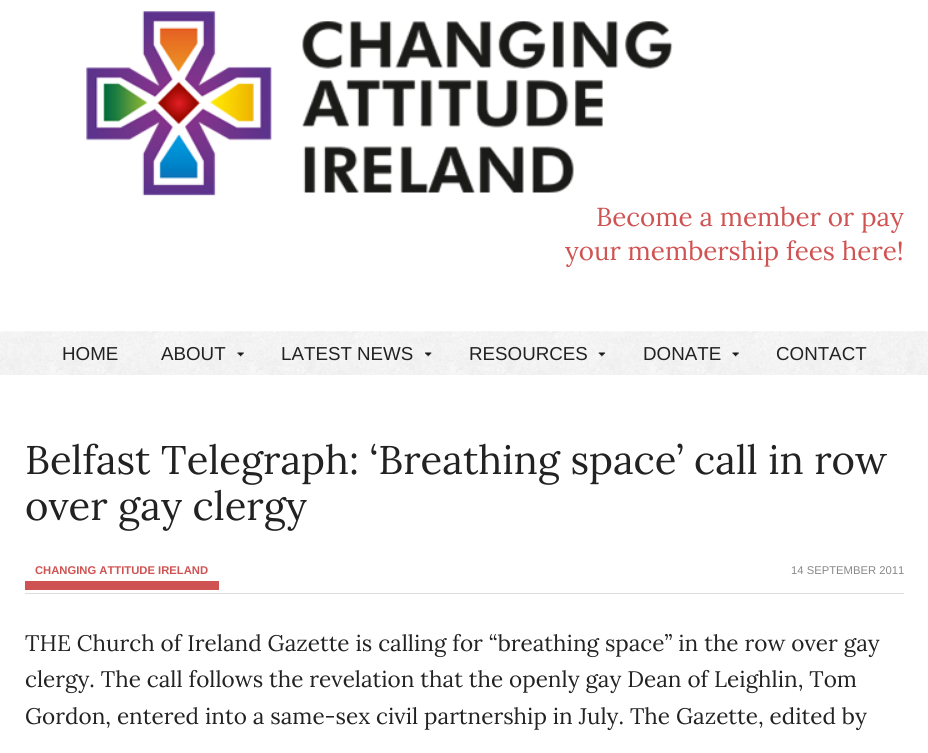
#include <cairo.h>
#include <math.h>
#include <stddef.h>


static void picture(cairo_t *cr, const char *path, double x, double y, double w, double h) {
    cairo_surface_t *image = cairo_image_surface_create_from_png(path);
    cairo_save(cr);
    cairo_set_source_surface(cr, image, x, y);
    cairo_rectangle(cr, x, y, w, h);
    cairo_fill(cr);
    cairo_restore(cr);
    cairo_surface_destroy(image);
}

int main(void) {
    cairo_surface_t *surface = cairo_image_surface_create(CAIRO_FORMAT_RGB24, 928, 753);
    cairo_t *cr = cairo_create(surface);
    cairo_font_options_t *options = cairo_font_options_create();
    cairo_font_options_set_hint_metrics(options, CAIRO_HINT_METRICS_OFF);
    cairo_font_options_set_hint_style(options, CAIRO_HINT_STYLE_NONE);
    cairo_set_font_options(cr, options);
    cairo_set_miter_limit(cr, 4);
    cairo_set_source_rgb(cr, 1, 1, 1);
    cairo_paint(cr);
    picture(cr, "img1.png", 86, 11, 587, 185);
    cairo_select_font_face(cr, "Lora", CAIRO_FONT_SLANT_NORMAL, CAIRO_FONT_WEIGHT_NORMAL);
    cairo_set_font_size(cr, 26);
    cairo_set_source_rgb(cr, 0.816, 0.325, 0.325);
    cairo_move_to(cr, 596, 226);
    cairo_show_text(cr, "Become a member or pay");
    cairo_move_to(cr, 565, 260);
    cairo_show_text(cr, "your membership fees here!");
    picture(cr, "img2.png", 0, 331, 928, 44);
    cairo_select_font_face(cr, "Liberation Sans", CAIRO_FONT_SLANT_NORMAL, CAIRO_FONT_WEIGHT_NORMAL);
    cairo_set_font_size(cr, 18.75);
    cairo_set_source_rgb(cr, 0.133, 0.133, 0.133);
    cairo_move_to(cr, 62, 360);
    cairo_show_text(cr, "HOME");
    cairo_move_to(cr, 161, 360);
    cairo_show_text(cr, "ABOUT");
    picture(cr, "img3.png", 237, 352, 7, 5);
    cairo_move_to(cr, 281, 360);
    cairo_show_text(cr, "LATEST NEWS");
    picture(cr, "img4.png", 425, 352, 7, 5);
    cairo_move_to(cr, 469, 360);
    cairo_show_text(cr, "RESOURCES");
    picture(cr, "img5.png", 598, 352, 7, 5);
    cairo_move_to(cr, 643, 360);
    cairo_show_text(cr, "DONATE");
    picture(cr, "img6.png", 732, 352, 7, 5);
    cairo_move_to(cr, 776, 360);
    cairo_show_text(cr, "CONTACT");
    cairo_select_font_face(cr, "Lora", CAIRO_FONT_SLANT_NORMAL, CAIRO_FONT_WEIGHT_NORMAL);
    cairo_set_font_size(cr, 40);
    cairo_move_to(cr, 25, 474);
    cairo_show_text(cr, "Belfast Telegraph: ‘Breathing space’ call in row");
    cairo_move_to(cr, 25, 520);
    cairo_show_text(cr, "over gay clergy");
    cairo_set_source_rgb(cr, 0.867, 0.867, 0.867);
    cairo_rectangle(cr, 25, 593, 879, 1);
    cairo_fill(cr);
    cairo_select_font_face(cr, "Liberation Sans", CAIRO_FONT_SLANT_NORMAL, CAIRO_FONT_WEIGHT_BOLD);
    cairo_set_font_size(cr, 11.25);
    cairo_set_source_rgb(cr, 0.816, 0.325, 0.325);
    cairo_move_to(cr, 35, 574);
    cairo_show_text(cr, "CHANGING ATTITUDE IRELAND");
    cairo_rectangle(cr, 25, 581, 194, 9);
    cairo_fill(cr);
    cairo_select_font_face(cr, "Liberation Sans", CAIRO_FONT_SLANT_NORMAL, CAIRO_FONT_WEIGHT_NORMAL);
    cairo_set_source_rgb(cr, 0.533, 0.533, 0.533);
    cairo_move_to(cr, 791, 574);
    cairo_show_text(cr, "14 SEPTEMBER 2011");
    cairo_select_font_face(cr, "Lora", CAIRO_FONT_SLANT_NORMAL, CAIRO_FONT_WEIGHT_NORMAL);
    cairo_set_font_size(cr, 22.5);
    cairo_set_source_rgb(cr, 0.133, 0.133, 0.133);
    cairo_move_to(cr, 25, 651);
    cairo_show_text(cr, "THE Church of Ireland Gazette is calling for “breathing space” in the row over gay");
    cairo_move_to(cr, 25, 687);
    cairo_show_text(cr, "clergy. The call follows the revelation that the openly gay Dean of Leighlin, Tom");
    cairo_move_to(cr, 25, 724);
    cairo_show_text(cr, "Gordon, entered into a same-sex civil partnership in July. The Gazette, edited by");
    cairo_surface_write_to_png(surface, "page.png");
    cairo_font_options_destroy(options);
    cairo_destroy(cr);
    cairo_surface_destroy(surface);
    return 0;
}
